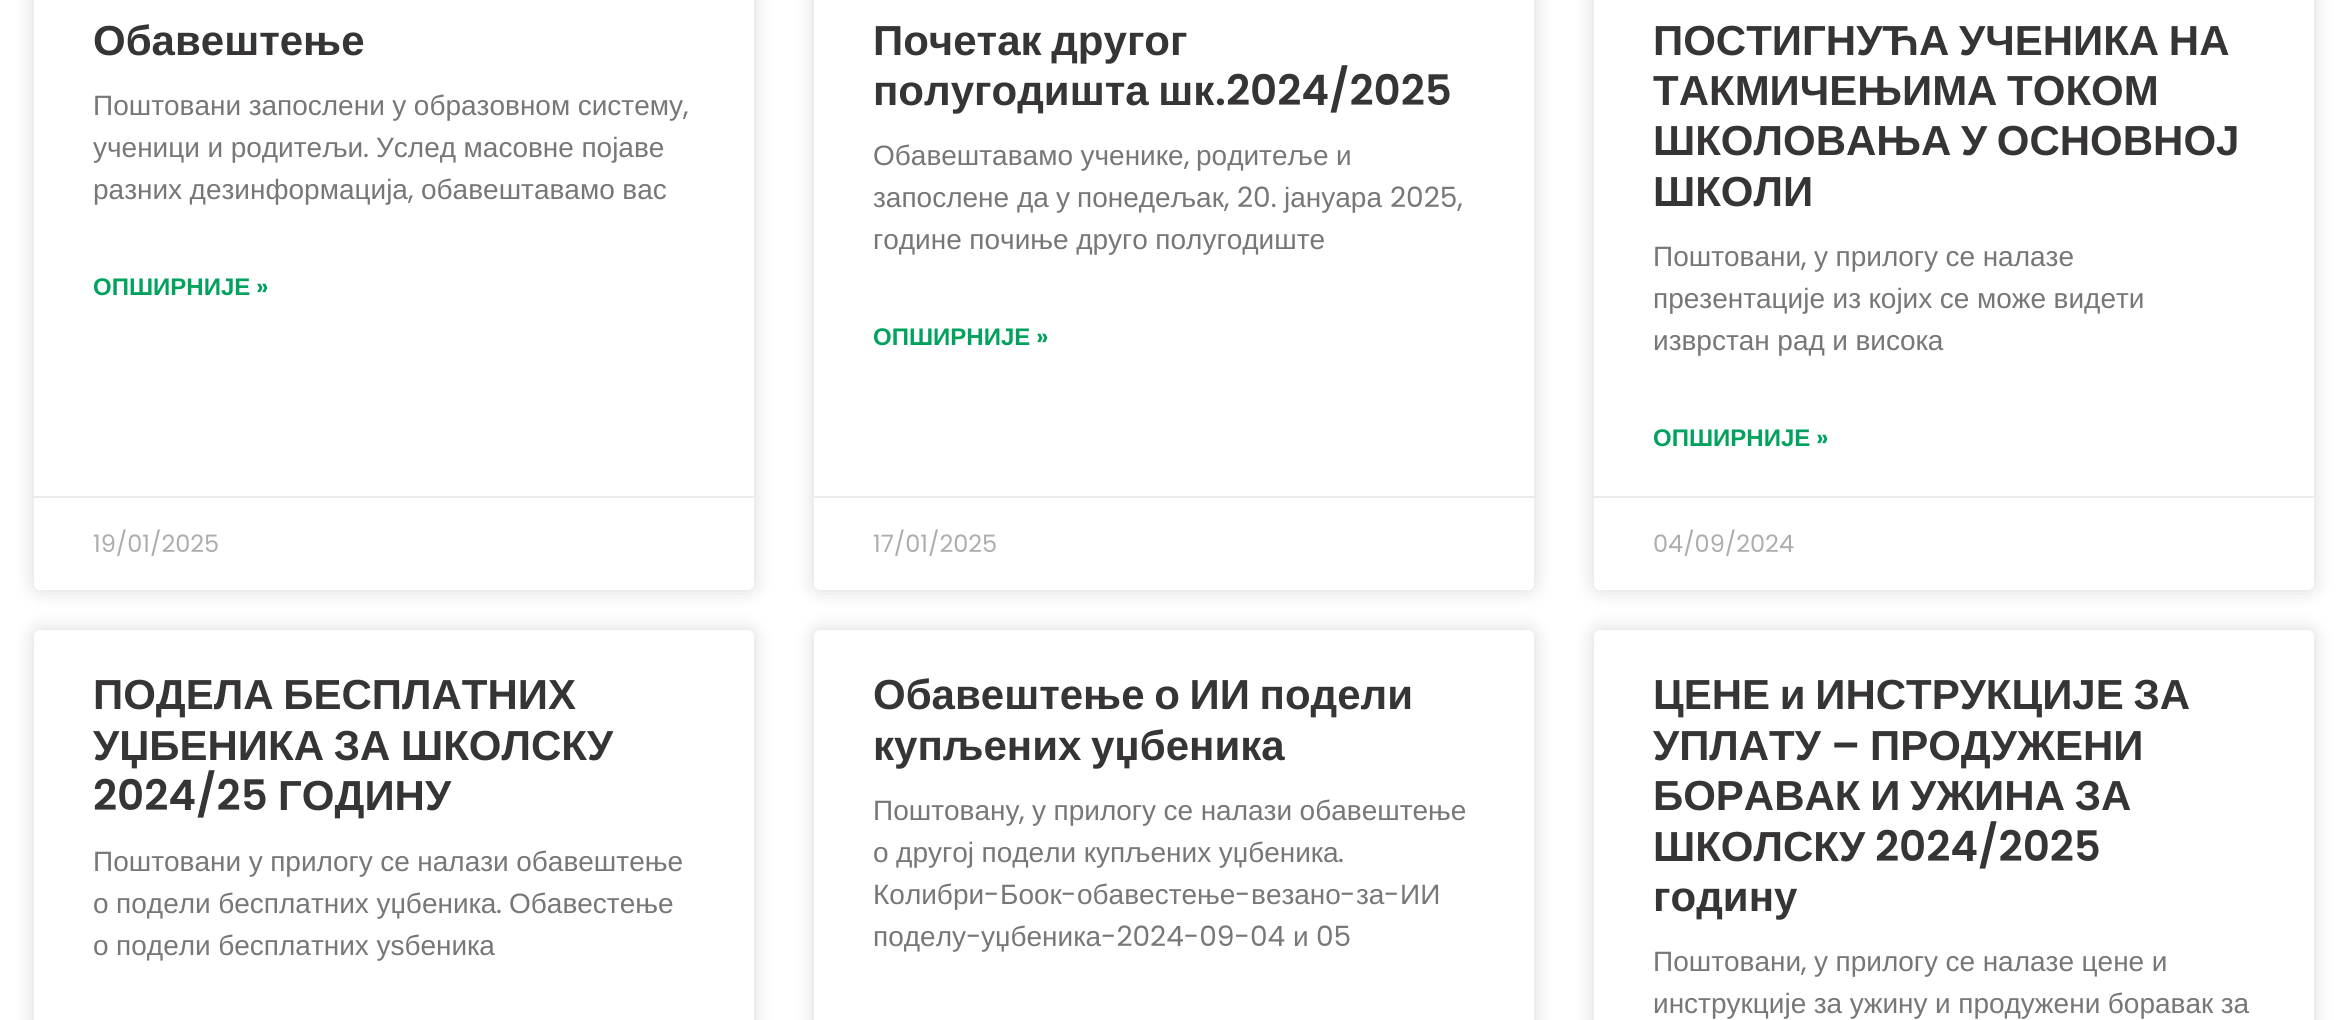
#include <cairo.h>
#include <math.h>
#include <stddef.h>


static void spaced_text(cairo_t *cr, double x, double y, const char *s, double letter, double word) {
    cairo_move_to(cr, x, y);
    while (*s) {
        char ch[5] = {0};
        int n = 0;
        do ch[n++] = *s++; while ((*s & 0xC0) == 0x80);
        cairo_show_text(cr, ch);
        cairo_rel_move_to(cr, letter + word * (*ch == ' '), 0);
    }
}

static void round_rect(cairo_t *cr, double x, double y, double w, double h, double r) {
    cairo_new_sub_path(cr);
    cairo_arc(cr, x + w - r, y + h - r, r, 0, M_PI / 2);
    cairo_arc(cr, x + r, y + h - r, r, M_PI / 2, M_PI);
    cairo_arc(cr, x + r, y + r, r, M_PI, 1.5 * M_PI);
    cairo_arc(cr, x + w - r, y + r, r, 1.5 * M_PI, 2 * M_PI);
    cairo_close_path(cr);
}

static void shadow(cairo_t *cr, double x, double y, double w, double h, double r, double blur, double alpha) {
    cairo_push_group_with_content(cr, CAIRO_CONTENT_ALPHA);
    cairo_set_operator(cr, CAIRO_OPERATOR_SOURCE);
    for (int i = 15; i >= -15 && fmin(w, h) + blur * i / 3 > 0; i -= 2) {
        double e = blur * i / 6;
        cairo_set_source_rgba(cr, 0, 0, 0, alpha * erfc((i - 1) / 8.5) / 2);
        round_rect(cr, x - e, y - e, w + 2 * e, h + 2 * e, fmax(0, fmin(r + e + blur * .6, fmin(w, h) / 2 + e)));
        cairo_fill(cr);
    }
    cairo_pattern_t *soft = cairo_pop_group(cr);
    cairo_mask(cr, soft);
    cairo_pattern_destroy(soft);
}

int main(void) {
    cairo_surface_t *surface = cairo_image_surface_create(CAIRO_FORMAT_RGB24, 2345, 1020);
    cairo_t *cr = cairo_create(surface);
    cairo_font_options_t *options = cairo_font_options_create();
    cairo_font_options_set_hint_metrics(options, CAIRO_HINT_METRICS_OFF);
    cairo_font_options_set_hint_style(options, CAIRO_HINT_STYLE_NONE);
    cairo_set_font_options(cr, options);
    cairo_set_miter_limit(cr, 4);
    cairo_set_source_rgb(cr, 1, 1, 1);
    cairo_paint(cr);
    cairo_set_source_rgb(cr, 0, 0, 0);
    shadow(cr, 34, -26, 720, 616, 6, 10, 0.15);
    cairo_set_source_rgb(cr, 1, 1, 1);
    round_rect(cr, 34, -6, 720, 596, 6);
    cairo_fill(cr);
    cairo_select_font_face(cr, "Liberation Sans", CAIRO_FONT_SLANT_NORMAL, CAIRO_FONT_WEIGHT_BOLD);
    cairo_set_font_size(cr, 42);
    cairo_set_source_rgb(cr, 0.212, 0.204, 0.208);
    cairo_move_to(cr, 93, 55);
    cairo_show_text(cr, "Обавештење");
    cairo_select_font_face(cr, "Liberation Sans", CAIRO_FONT_SLANT_NORMAL, CAIRO_FONT_WEIGHT_NORMAL);
    cairo_set_font_size(cr, 28);
    cairo_set_source_rgb(cr, 0.467, 0.467, 0.467);
    spaced_text(cr, 93, 115, "Поштовани запослени у образовном систему", 0, -0.25);
    cairo_select_font_face(cr, "Poppins", CAIRO_FONT_SLANT_NORMAL, CAIRO_FONT_WEIGHT_NORMAL);
    cairo_move_to(cr, 683, 115);
    cairo_show_text(cr, ",");
    cairo_select_font_face(cr, "Liberation Sans", CAIRO_FONT_SLANT_NORMAL, CAIRO_FONT_WEIGHT_NORMAL);
    spaced_text(cr, 93, 157, "ученици и родитељи", 0, -0.25);
    cairo_select_font_face(cr, "Poppins", CAIRO_FONT_SLANT_NORMAL, CAIRO_FONT_WEIGHT_NORMAL);
    cairo_move_to(cr, 363, 157);
    cairo_show_text(cr, ".");
    cairo_select_font_face(cr, "Liberation Sans", CAIRO_FONT_SLANT_NORMAL, CAIRO_FONT_WEIGHT_NORMAL);
    spaced_text(cr, 376, 157, "Услед масовне појаве", 0, -0.25);
    spaced_text(cr, 93, 199, "разних дезинформација", 0, -0.25);
    cairo_select_font_face(cr, "Poppins", CAIRO_FONT_SLANT_NORMAL, CAIRO_FONT_WEIGHT_NORMAL);
    cairo_move_to(cr, 408, 199);
    cairo_show_text(cr, ",");
    cairo_select_font_face(cr, "Liberation Sans", CAIRO_FONT_SLANT_NORMAL, CAIRO_FONT_WEIGHT_NORMAL);
    spaced_text(cr, 421, 199, "обавештавамо вас", 0, -0.25);
    cairo_select_font_face(cr, "Liberation Sans", CAIRO_FONT_SLANT_NORMAL, CAIRO_FONT_WEIGHT_BOLD);
    cairo_set_font_size(cr, 24);
    cairo_set_source_rgb(cr, 0.004, 0.635, 0.369);
    cairo_move_to(cr, 93, 295);
    cairo_show_text(cr, "ОПШИРНИЈЕ");
    cairo_select_font_face(cr, "Poppins SemiBold", CAIRO_FONT_SLANT_NORMAL, CAIRO_FONT_WEIGHT_NORMAL);
    cairo_move_to(cr, 256, 295);
    cairo_show_text(cr, "»");
    cairo_set_source_rgb(cr, 0.918, 0.918, 0.918);
    cairo_rectangle(cr, 34, 496, 720, 2);
    cairo_fill(cr);
    cairo_select_font_face(cr, "Poppins", CAIRO_FONT_SLANT_NORMAL, CAIRO_FONT_WEIGHT_NORMAL);
    cairo_set_source_rgb(cr, 0.678, 0.678, 0.678);
    cairo_move_to(cr, 93, 552);
    cairo_show_text(cr, "19/01/2025");
    cairo_set_source_rgb(cr, 0, 0, 0);
    shadow(cr, 814, -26, 720, 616, 6, 10, 0.15);
    cairo_set_source_rgb(cr, 1, 1, 1);
    round_rect(cr, 814, -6, 720, 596, 6);
    cairo_fill(cr);
    cairo_select_font_face(cr, "Liberation Sans", CAIRO_FONT_SLANT_NORMAL, CAIRO_FONT_WEIGHT_BOLD);
    cairo_set_font_size(cr, 42);
    cairo_set_source_rgb(cr, 0.212, 0.204, 0.208);
    spaced_text(cr, 873, 55, "Почетак другог", 0, -2);
    spaced_text(cr, 873, 105, "полугодишта шк", 0, -2);
    cairo_select_font_face(cr, "Poppins SemiBold", CAIRO_FONT_SLANT_NORMAL, CAIRO_FONT_WEIGHT_NORMAL);
    cairo_move_to(cr, 1215, 105);
    cairo_show_text(cr, ".2024/2025");
    cairo_select_font_face(cr, "Liberation Sans", CAIRO_FONT_SLANT_NORMAL, CAIRO_FONT_WEIGHT_NORMAL);
    cairo_set_font_size(cr, 28);
    cairo_set_source_rgb(cr, 0.467, 0.467, 0.467);
    spaced_text(cr, 873, 165, "Обавештавамо ученике", 0, -0.25);
    cairo_select_font_face(cr, "Poppins", CAIRO_FONT_SLANT_NORMAL, CAIRO_FONT_WEIGHT_NORMAL);
    cairo_move_to(cr, 1184, 165);
    cairo_show_text(cr, ",");
    cairo_select_font_face(cr, "Liberation Sans", CAIRO_FONT_SLANT_NORMAL, CAIRO_FONT_WEIGHT_NORMAL);
    spaced_text(cr, 1196, 165, "родитеље и", 0, -0.25);
    cairo_move_to(cr, 873, 207);
    cairo_show_text(cr, "запослене");
    cairo_move_to(cr, 1017, 207);
    cairo_show_text(cr, "да");
    cairo_move_to(cr, 1056, 207);
    cairo_show_text(cr, "у");
    cairo_move_to(cr, 1077, 207);
    cairo_show_text(cr, "понедељак");
    cairo_select_font_face(cr, "Poppins", CAIRO_FONT_SLANT_NORMAL, CAIRO_FONT_WEIGHT_NORMAL);
    cairo_move_to(cr, 1224, 207);
    cairo_show_text(cr, ", 20.");
    cairo_select_font_face(cr, "Liberation Sans", CAIRO_FONT_SLANT_NORMAL, CAIRO_FONT_WEIGHT_NORMAL);
    cairo_move_to(cr, 1284, 207);
    cairo_show_text(cr, "јануара");
    cairo_select_font_face(cr, "Poppins", CAIRO_FONT_SLANT_NORMAL, CAIRO_FONT_WEIGHT_NORMAL);
    cairo_move_to(cr, 1390, 207);
    cairo_show_text(cr, "2025,");
    cairo_select_font_face(cr, "Liberation Sans", CAIRO_FONT_SLANT_NORMAL, CAIRO_FONT_WEIGHT_NORMAL);
    spaced_text(cr, 873, 249, "године почиње друго полугодиште", 0, -0.25);
    cairo_select_font_face(cr, "Liberation Sans", CAIRO_FONT_SLANT_NORMAL, CAIRO_FONT_WEIGHT_BOLD);
    cairo_set_font_size(cr, 24);
    cairo_set_source_rgb(cr, 0.004, 0.635, 0.369);
    cairo_move_to(cr, 873, 345);
    cairo_show_text(cr, "ОПШИРНИЈЕ");
    cairo_select_font_face(cr, "Poppins SemiBold", CAIRO_FONT_SLANT_NORMAL, CAIRO_FONT_WEIGHT_NORMAL);
    cairo_move_to(cr, 1036, 345);
    cairo_show_text(cr, "»");
    cairo_set_source_rgb(cr, 0.918, 0.918, 0.918);
    cairo_rectangle(cr, 814, 496, 720, 2);
    cairo_fill(cr);
    cairo_select_font_face(cr, "Poppins", CAIRO_FONT_SLANT_NORMAL, CAIRO_FONT_WEIGHT_NORMAL);
    cairo_set_source_rgb(cr, 0.678, 0.678, 0.678);
    cairo_move_to(cr, 873, 552);
    cairo_show_text(cr, "17/01/2025");
    cairo_set_source_rgb(cr, 0, 0, 0);
    shadow(cr, 1594, -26, 720, 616, 6, 10, 0.15);
    cairo_set_source_rgb(cr, 1, 1, 1);
    round_rect(cr, 1594, -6, 720, 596, 6);
    cairo_fill(cr);
    cairo_select_font_face(cr, "Liberation Sans", CAIRO_FONT_SLANT_NORMAL, CAIRO_FONT_WEIGHT_BOLD);
    cairo_set_font_size(cr, 42);
    cairo_set_source_rgb(cr, 0.212, 0.204, 0.208);
    spaced_text(cr, 1653, 55, "ПОСТИГНУЋА УЧЕНИКА НА", 0, -2);
    spaced_text(cr, 1653, 105, "ТАКМИЧЕЊИМА ТОКОМ", 0, -2);
    spaced_text(cr, 1653, 155, "ШКОЛОВАЊА У ОСНОВНОЈ", 0, -2);
    cairo_move_to(cr, 1653, 206);
    cairo_show_text(cr, "ШКОЛИ");
    cairo_select_font_face(cr, "Liberation Sans", CAIRO_FONT_SLANT_NORMAL, CAIRO_FONT_WEIGHT_NORMAL);
    cairo_set_font_size(cr, 28);
    cairo_set_source_rgb(cr, 0.467, 0.467, 0.467);
    cairo_move_to(cr, 1653, 266);
    cairo_show_text(cr, "Поштовани");
    cairo_select_font_face(cr, "Poppins", CAIRO_FONT_SLANT_NORMAL, CAIRO_FONT_WEIGHT_NORMAL);
    cairo_move_to(cr, 1801, 266);
    cairo_show_text(cr, ",");
    cairo_select_font_face(cr, "Liberation Sans", CAIRO_FONT_SLANT_NORMAL, CAIRO_FONT_WEIGHT_NORMAL);
    spaced_text(cr, 1814, 266, "у прилогу се налазе", 0, -0.25);
    spaced_text(cr, 1653, 308, "презентације из којих се може видети", 0, -0.25);
    spaced_text(cr, 1653, 350, "изврстан рад и висока", 0, -0.25);
    cairo_select_font_face(cr, "Liberation Sans", CAIRO_FONT_SLANT_NORMAL, CAIRO_FONT_WEIGHT_BOLD);
    cairo_set_font_size(cr, 24);
    cairo_set_source_rgb(cr, 0.004, 0.635, 0.369);
    cairo_move_to(cr, 1653, 446);
    cairo_show_text(cr, "ОПШИРНИЈЕ");
    cairo_select_font_face(cr, "Poppins SemiBold", CAIRO_FONT_SLANT_NORMAL, CAIRO_FONT_WEIGHT_NORMAL);
    cairo_move_to(cr, 1816, 446);
    cairo_show_text(cr, "»");
    cairo_set_source_rgb(cr, 0.918, 0.918, 0.918);
    cairo_rectangle(cr, 1594, 496, 720, 2);
    cairo_fill(cr);
    cairo_select_font_face(cr, "Poppins", CAIRO_FONT_SLANT_NORMAL, CAIRO_FONT_WEIGHT_NORMAL);
    cairo_set_source_rgb(cr, 0.678, 0.678, 0.678);
    cairo_move_to(cr, 1653, 552);
    cairo_show_text(cr, "04/09/2024");
    cairo_set_source_rgb(cr, 0, 0, 0);
    shadow(cr, 34, 630, 720, 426, 6, 10, 0.15);
    cairo_set_source_rgb(cr, 1, 1, 1);
    round_rect(cr, 34, 630, 720, 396, 6);
    cairo_fill(cr);
    cairo_select_font_face(cr, "Liberation Sans", CAIRO_FONT_SLANT_NORMAL, CAIRO_FONT_WEIGHT_BOLD);
    cairo_set_font_size(cr, 42);
    cairo_set_source_rgb(cr, 0.212, 0.204, 0.208);
    spaced_text(cr, 93, 709, "ПОДЕЛА БЕСПЛАТНИХ", 0, -2);
    spaced_text(cr, 93, 760, "УЏБЕНИКА ЗА", 0, -2);
    cairo_move_to(cr, 401, 760);
    cairo_show_text(cr, "ШКОЛСКУ");
    cairo_select_font_face(cr, "Poppins SemiBold", CAIRO_FONT_SLANT_NORMAL, CAIRO_FONT_WEIGHT_NORMAL);
    cairo_move_to(cr, 93, 810);
    cairo_show_text(cr, "2024/25");
    cairo_select_font_face(cr, "Liberation Sans", CAIRO_FONT_SLANT_NORMAL, CAIRO_FONT_WEIGHT_BOLD);
    cairo_move_to(cr, 278, 810);
    cairo_show_text(cr, "ГОДИНУ");
    cairo_select_font_face(cr, "Liberation Sans", CAIRO_FONT_SLANT_NORMAL, CAIRO_FONT_WEIGHT_NORMAL);
    cairo_set_font_size(cr, 28);
    cairo_set_source_rgb(cr, 0.467, 0.467, 0.467);
    spaced_text(cr, 93, 871, "Поштовани у прилогу се налази обавештење", 0, -0.25);
    spaced_text(cr, 93, 913, "о подели бесплатних уџбеника", 0, -0.25);
    cairo_select_font_face(cr, "Poppins", CAIRO_FONT_SLANT_NORMAL, CAIRO_FONT_WEIGHT_NORMAL);
    cairo_move_to(cr, 496, 913);
    cairo_show_text(cr, ".");
    cairo_select_font_face(cr, "Liberation Sans", CAIRO_FONT_SLANT_NORMAL, CAIRO_FONT_WEIGHT_NORMAL);
    cairo_move_to(cr, 509, 913);
    cairo_show_text(cr, "Обавестење");
    spaced_text(cr, 93, 955, "о подели бесплатних уѕбеника", 0, -0.25);
    cairo_set_source_rgb(cr, 0, 0, 0);
    shadow(cr, 814, 630, 720, 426, 6, 10, 0.15);
    cairo_set_source_rgb(cr, 1, 1, 1);
    round_rect(cr, 814, 630, 720, 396, 6);
    cairo_fill(cr);
    cairo_select_font_face(cr, "Liberation Sans", CAIRO_FONT_SLANT_NORMAL, CAIRO_FONT_WEIGHT_BOLD);
    cairo_set_font_size(cr, 42);
    cairo_set_source_rgb(cr, 0.212, 0.204, 0.208);
    spaced_text(cr, 873, 709, "Обавештење о ИИ подели", 0, -2);
    spaced_text(cr, 873, 760, "купљених уџбеника", 0, -2);
    cairo_select_font_face(cr, "Liberation Sans", CAIRO_FONT_SLANT_NORMAL, CAIRO_FONT_WEIGHT_NORMAL);
    cairo_set_font_size(cr, 28);
    cairo_set_source_rgb(cr, 0.467, 0.467, 0.467);
    cairo_move_to(cr, 873, 820);
    cairo_show_text(cr, "Поштовану");
    cairo_select_font_face(cr, "Poppins", CAIRO_FONT_SLANT_NORMAL, CAIRO_FONT_WEIGHT_NORMAL);
    cairo_move_to(cr, 1019, 820);
    cairo_show_text(cr, ",");
    cairo_select_font_face(cr, "Liberation Sans", CAIRO_FONT_SLANT_NORMAL, CAIRO_FONT_WEIGHT_NORMAL);
    spaced_text(cr, 1032, 820, "у прилогу се налази обавештење", 0, -0.25);
    spaced_text(cr, 873, 862, "о другој подели купљених уџбеника", 0, -0.25);
    cairo_select_font_face(cr, "Poppins", CAIRO_FONT_SLANT_NORMAL, CAIRO_FONT_WEIGHT_NORMAL);
    cairo_move_to(cr, 1338, 862);
    cairo_show_text(cr, ".");
    cairo_select_font_face(cr, "Liberation Sans", CAIRO_FONT_SLANT_NORMAL, CAIRO_FONT_WEIGHT_NORMAL);
    cairo_move_to(cr, 873, 904);
    cairo_show_text(cr, "Колибри");
    cairo_select_font_face(cr, "Poppins", CAIRO_FONT_SLANT_NORMAL, CAIRO_FONT_WEIGHT_NORMAL);
    cairo_move_to(cr, 984, 904);
    cairo_show_text(cr, "-");
    cairo_select_font_face(cr, "Liberation Sans", CAIRO_FONT_SLANT_NORMAL, CAIRO_FONT_WEIGHT_NORMAL);
    cairo_move_to(cr, 1000, 904);
    cairo_show_text(cr, "Боок");
    cairo_select_font_face(cr, "Poppins", CAIRO_FONT_SLANT_NORMAL, CAIRO_FONT_WEIGHT_NORMAL);
    cairo_move_to(cr, 1061, 904);
    cairo_show_text(cr, "-");
    cairo_select_font_face(cr, "Liberation Sans", CAIRO_FONT_SLANT_NORMAL, CAIRO_FONT_WEIGHT_NORMAL);
    cairo_move_to(cr, 1077, 904);
    cairo_show_text(cr, "обавестење");
    cairo_select_font_face(cr, "Poppins", CAIRO_FONT_SLANT_NORMAL, CAIRO_FONT_WEIGHT_NORMAL);
    cairo_move_to(cr, 1235, 904);
    cairo_show_text(cr, "-");
    cairo_select_font_face(cr, "Liberation Sans", CAIRO_FONT_SLANT_NORMAL, CAIRO_FONT_WEIGHT_NORMAL);
    cairo_move_to(cr, 1251, 904);
    cairo_show_text(cr, "везано");
    cairo_select_font_face(cr, "Poppins", CAIRO_FONT_SLANT_NORMAL, CAIRO_FONT_WEIGHT_NORMAL);
    cairo_move_to(cr, 1340, 904);
    cairo_show_text(cr, "-");
    cairo_select_font_face(cr, "Liberation Sans", CAIRO_FONT_SLANT_NORMAL, CAIRO_FONT_WEIGHT_NORMAL);
    cairo_move_to(cr, 1356, 904);
    cairo_show_text(cr, "за");
    cairo_select_font_face(cr, "Poppins", CAIRO_FONT_SLANT_NORMAL, CAIRO_FONT_WEIGHT_NORMAL);
    cairo_move_to(cr, 1384, 904);
    cairo_show_text(cr, "-");
    cairo_select_font_face(cr, "Liberation Sans", CAIRO_FONT_SLANT_NORMAL, CAIRO_FONT_WEIGHT_NORMAL);
    cairo_move_to(cr, 1400, 904);
    cairo_show_text(cr, "ИИ");
    cairo_move_to(cr, 873, 946);
    cairo_show_text(cr, "поделу");
    cairo_select_font_face(cr, "Poppins", CAIRO_FONT_SLANT_NORMAL, CAIRO_FONT_WEIGHT_NORMAL);
    cairo_move_to(cr, 966, 946);
    cairo_show_text(cr, "-");
    cairo_select_font_face(cr, "Liberation Sans", CAIRO_FONT_SLANT_NORMAL, CAIRO_FONT_WEIGHT_NORMAL);
    cairo_move_to(cr, 981, 946);
    cairo_show_text(cr, "уџбеника");
    cairo_select_font_face(cr, "Poppins", CAIRO_FONT_SLANT_NORMAL, CAIRO_FONT_WEIGHT_NORMAL);
    cairo_move_to(cr, 1101, 946);
    cairo_show_text(cr, "-2024-09-04");
    cairo_select_font_face(cr, "Liberation Sans", CAIRO_FONT_SLANT_NORMAL, CAIRO_FONT_WEIGHT_NORMAL);
    cairo_move_to(cr, 1293, 946);
    cairo_show_text(cr, "и");
    cairo_select_font_face(cr, "Poppins", CAIRO_FONT_SLANT_NORMAL, CAIRO_FONT_WEIGHT_NORMAL);
    cairo_move_to(cr, 1316, 946);
    cairo_show_text(cr, "05");
    cairo_set_source_rgb(cr, 0, 0, 0);
    shadow(cr, 1594, 630, 720, 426, 6, 10, 0.15);
    cairo_set_source_rgb(cr, 1, 1, 1);
    round_rect(cr, 1594, 630, 720, 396, 6);
    cairo_fill(cr);
    cairo_select_font_face(cr, "Liberation Sans", CAIRO_FONT_SLANT_NORMAL, CAIRO_FONT_WEIGHT_BOLD);
    cairo_set_font_size(cr, 42);
    cairo_set_source_rgb(cr, 0.212, 0.204, 0.208);
    spaced_text(cr, 1653, 709, "ЦЕНЕ и ИНСТРУКЦИЈЕ ЗА", 0, -2);
    cairo_move_to(cr, 1653, 760);
    cairo_show_text(cr, "УПЛАТУ");
    cairo_select_font_face(cr, "Poppins SemiBold", CAIRO_FONT_SLANT_NORMAL, CAIRO_FONT_WEIGHT_NORMAL);
    cairo_move_to(cr, 1831, 760);
    cairo_show_text(cr, "–");
    cairo_select_font_face(cr, "Liberation Sans", CAIRO_FONT_SLANT_NORMAL, CAIRO_FONT_WEIGHT_BOLD);
    cairo_move_to(cr, 1870, 760);
    cairo_show_text(cr, "ПРОДУЖЕНИ");
    spaced_text(cr, 1653, 810, "БОРАВАК И УЖИНА ЗА", 0, -2);
    cairo_move_to(cr, 1653, 861);
    cairo_show_text(cr, "ШКОЛСКУ");
    cairo_select_font_face(cr, "Poppins SemiBold", CAIRO_FONT_SLANT_NORMAL, CAIRO_FONT_WEIGHT_NORMAL);
    cairo_move_to(cr, 1875, 861);
    cairo_show_text(cr, "2024/2025");
    cairo_select_font_face(cr, "Liberation Sans", CAIRO_FONT_SLANT_NORMAL, CAIRO_FONT_WEIGHT_BOLD);
    cairo_move_to(cr, 1653, 911);
    cairo_show_text(cr, "годину");
    cairo_select_font_face(cr, "Liberation Sans", CAIRO_FONT_SLANT_NORMAL, CAIRO_FONT_WEIGHT_NORMAL);
    cairo_set_font_size(cr, 28);
    cairo_set_source_rgb(cr, 0.467, 0.467, 0.467);
    cairo_move_to(cr, 1653, 971);
    cairo_show_text(cr, "Поштовани");
    cairo_select_font_face(cr, "Poppins", CAIRO_FONT_SLANT_NORMAL, CAIRO_FONT_WEIGHT_NORMAL);
    cairo_move_to(cr, 1801, 971);
    cairo_show_text(cr, ",");
    cairo_select_font_face(cr, "Liberation Sans", CAIRO_FONT_SLANT_NORMAL, CAIRO_FONT_WEIGHT_NORMAL);
    spaced_text(cr, 1814, 971, "у прилогу се налазе цене и", 0, -0.25);
    spaced_text(cr, 1653, 1013, "инструкције за ужину и продужени боравак за", 0, -0.25);
    cairo_surface_write_to_png(surface, "page.png");
    cairo_font_options_destroy(options);
    cairo_destroy(cr);
    cairo_surface_destroy(surface);
    return 0;
}
